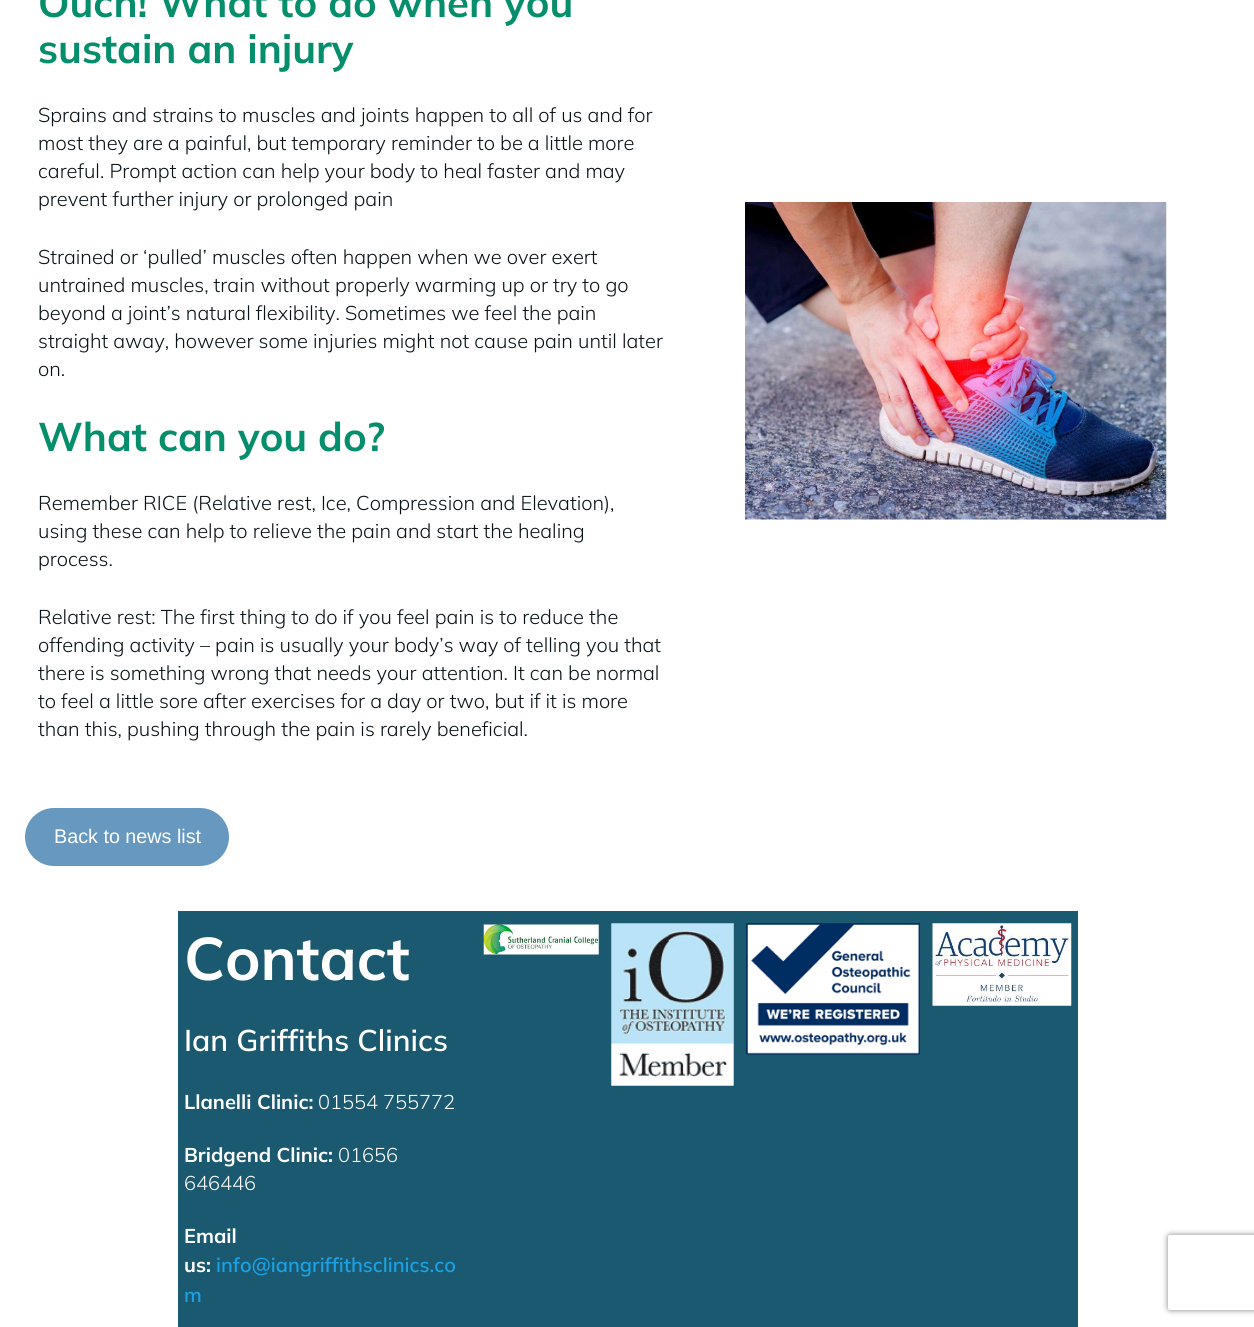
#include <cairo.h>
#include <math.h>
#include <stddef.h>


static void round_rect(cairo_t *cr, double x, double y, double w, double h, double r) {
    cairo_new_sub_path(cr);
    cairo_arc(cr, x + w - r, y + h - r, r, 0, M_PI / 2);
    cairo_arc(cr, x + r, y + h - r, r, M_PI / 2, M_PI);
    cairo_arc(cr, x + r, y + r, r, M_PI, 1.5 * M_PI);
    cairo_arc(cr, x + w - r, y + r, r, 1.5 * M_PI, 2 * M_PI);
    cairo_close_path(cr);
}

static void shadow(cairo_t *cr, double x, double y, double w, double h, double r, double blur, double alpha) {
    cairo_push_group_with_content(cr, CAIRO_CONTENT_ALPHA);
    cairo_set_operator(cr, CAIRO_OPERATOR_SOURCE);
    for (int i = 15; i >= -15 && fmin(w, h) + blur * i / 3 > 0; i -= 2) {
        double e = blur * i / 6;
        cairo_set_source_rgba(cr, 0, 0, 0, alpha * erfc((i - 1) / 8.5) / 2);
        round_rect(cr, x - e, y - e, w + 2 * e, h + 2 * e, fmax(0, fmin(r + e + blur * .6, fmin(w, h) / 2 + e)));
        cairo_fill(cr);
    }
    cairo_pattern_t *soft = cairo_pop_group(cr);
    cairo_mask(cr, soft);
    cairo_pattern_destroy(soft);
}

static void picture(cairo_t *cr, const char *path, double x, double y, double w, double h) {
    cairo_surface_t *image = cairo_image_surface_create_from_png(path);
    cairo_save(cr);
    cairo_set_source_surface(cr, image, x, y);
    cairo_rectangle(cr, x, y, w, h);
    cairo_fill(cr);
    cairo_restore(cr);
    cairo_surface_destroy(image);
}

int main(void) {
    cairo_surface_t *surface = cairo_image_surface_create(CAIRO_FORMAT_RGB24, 1254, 1327);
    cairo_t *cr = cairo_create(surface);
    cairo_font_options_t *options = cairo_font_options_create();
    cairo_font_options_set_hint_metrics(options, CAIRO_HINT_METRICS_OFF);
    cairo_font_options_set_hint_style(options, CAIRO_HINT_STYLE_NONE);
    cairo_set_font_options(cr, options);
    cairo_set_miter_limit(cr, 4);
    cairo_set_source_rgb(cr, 1, 1, 1);
    cairo_paint(cr);
    cairo_select_font_face(cr, "Mulish", CAIRO_FONT_SLANT_NORMAL, CAIRO_FONT_WEIGHT_BOLD);
    cairo_set_font_size(cr, 40);
    cairo_set_source_rgb(cr, 0.02, 0.557, 0.424);
    cairo_move_to(cr, 38, 17);
    cairo_show_text(cr, "Ouch! What to do when you");
    cairo_move_to(cr, 38, 63);
    cairo_show_text(cr, "sustain an injury");
    cairo_select_font_face(cr, "Mulish Light", CAIRO_FONT_SLANT_NORMAL, CAIRO_FONT_WEIGHT_NORMAL);
    cairo_set_font_size(cr, 20);
    cairo_set_source_rgb(cr, 0.039, 0.071, 0.086);
    cairo_move_to(cr, 38, 122);
    cairo_show_text(cr, "Sprains and strains to muscles and joints happen to all of us and for");
    cairo_move_to(cr, 38, 150);
    cairo_show_text(cr, "most they are a painful, but temporary reminder to be a little more");
    cairo_move_to(cr, 38, 178);
    cairo_show_text(cr, "careful. Prompt action can help your body to heal faster and may");
    cairo_move_to(cr, 38, 206);
    cairo_show_text(cr, "prevent further injury or prolonged pain");
    cairo_move_to(cr, 38, 264);
    cairo_show_text(cr, "Strained or ‘pulled’ muscles often happen when we over exert");
    cairo_move_to(cr, 38, 292);
    cairo_show_text(cr, "untrained muscles, train without properly warming up or try to go");
    cairo_move_to(cr, 38, 320);
    cairo_show_text(cr, "beyond a joint’s natural flexibility. Sometimes we feel the pain");
    cairo_move_to(cr, 38, 348);
    cairo_show_text(cr, "straight away, however some injuries might not cause pain until later");
    cairo_move_to(cr, 38, 376);
    cairo_show_text(cr, "on.");
    cairo_select_font_face(cr, "Mulish", CAIRO_FONT_SLANT_NORMAL, CAIRO_FONT_WEIGHT_BOLD);
    cairo_set_font_size(cr, 40);
    cairo_set_source_rgb(cr, 0.02, 0.557, 0.424);
    cairo_move_to(cr, 38, 451);
    cairo_show_text(cr, "What can you do?");
    cairo_select_font_face(cr, "Mulish Light", CAIRO_FONT_SLANT_NORMAL, CAIRO_FONT_WEIGHT_NORMAL);
    cairo_set_font_size(cr, 20);
    cairo_set_source_rgb(cr, 0.039, 0.071, 0.086);
    cairo_move_to(cr, 38, 510);
    cairo_show_text(cr, "Remember RICE (Relative rest, Ice, Compression and Elevation),");
    cairo_move_to(cr, 38, 538);
    cairo_show_text(cr, "using these can help to relieve the pain and start the healing");
    cairo_move_to(cr, 38, 566);
    cairo_show_text(cr, "process.");
    cairo_move_to(cr, 38, 624);
    cairo_show_text(cr, "Relative rest: The first thing to do if you feel pain is to reduce the");
    cairo_move_to(cr, 38, 652);
    cairo_show_text(cr, "offending activity – pain is usually your body’s way of telling you that");
    cairo_move_to(cr, 38, 680);
    cairo_show_text(cr, "there is something wrong that needs your attention. It can be normal");
    cairo_move_to(cr, 38, 708);
    cairo_show_text(cr, "to feel a little sore after exercises for a day or two, but if it is more");
    cairo_move_to(cr, 38, 736);
    cairo_show_text(cr, "than this, pushing through the pain is rarely beneficial.");
    picture(cr, "img1.png", 745, 202, 422, 318);
    cairo_set_source_rgb(cr, 0.4, 0.596, 0.753);
    round_rect(cr, 25, 808, 204, 58, 29);
    cairo_fill(cr);
    cairo_select_font_face(cr, "Liberation Sans", CAIRO_FONT_SLANT_NORMAL, CAIRO_FONT_WEIGHT_NORMAL);
    cairo_set_font_size(cr, 19.75);
    cairo_set_source_rgb(cr, 1, 1, 1);
    cairo_move_to(cr, 54, 843);
    cairo_show_text(cr, "Back to news list");
    cairo_set_source_rgb(cr, 0.102, 0.349, 0.435);
    cairo_rectangle(cr, 178, 911, 900, 416);
    cairo_fill(cr);
    cairo_select_font_face(cr, "Mulish", CAIRO_FONT_SLANT_NORMAL, CAIRO_FONT_WEIGHT_BOLD);
    cairo_set_font_size(cr, 60);
    cairo_set_source_rgb(cr, 1, 1, 1);
    cairo_move_to(cr, 184, 980);
    cairo_show_text(cr, "Contact");
    cairo_select_font_face(cr, "Mulish SemiBold", CAIRO_FONT_SLANT_NORMAL, CAIRO_FONT_WEIGHT_NORMAL);
    cairo_set_font_size(cr, 30);
    cairo_move_to(cr, 184, 1051);
    cairo_show_text(cr, "Ian Griffiths Clinics");
    cairo_select_font_face(cr, "Mulish", CAIRO_FONT_SLANT_NORMAL, CAIRO_FONT_WEIGHT_BOLD);
    cairo_set_font_size(cr, 20);
    cairo_move_to(cr, 184, 1109);
    cairo_show_text(cr, "Llanelli Clinic:");
    cairo_select_font_face(cr, "Mulish Light", CAIRO_FONT_SLANT_NORMAL, CAIRO_FONT_WEIGHT_NORMAL);
    cairo_move_to(cr, 318, 1109);
    cairo_show_text(cr, "01554 755772");
    cairo_select_font_face(cr, "Mulish", CAIRO_FONT_SLANT_NORMAL, CAIRO_FONT_WEIGHT_BOLD);
    cairo_move_to(cr, 184, 1162);
    cairo_show_text(cr, "Bridgend Clinic:");
    cairo_select_font_face(cr, "Mulish Light", CAIRO_FONT_SLANT_NORMAL, CAIRO_FONT_WEIGHT_NORMAL);
    cairo_move_to(cr, 338, 1162);
    cairo_show_text(cr, "01656");
    cairo_move_to(cr, 184, 1190);
    cairo_show_text(cr, "646446");
    cairo_select_font_face(cr, "Mulish", CAIRO_FONT_SLANT_NORMAL, CAIRO_FONT_WEIGHT_BOLD);
    cairo_move_to(cr, 184, 1243);
    cairo_show_text(cr, "Email");
    cairo_move_to(cr, 184, 1272);
    cairo_show_text(cr, "us:");
    cairo_select_font_face(cr, "Mulish SemiBold", CAIRO_FONT_SLANT_NORMAL, CAIRO_FONT_WEIGHT_NORMAL);
    cairo_set_source_rgb(cr, 0.102, 0.635, 0.902);
    cairo_move_to(cr, 216, 1272);
    cairo_show_text(cr, "info@iangriffithsclinics.co");
    cairo_move_to(cr, 184, 1302);
    cairo_show_text(cr, "m");
    picture(cr, "img2.png", 483, 924, 116, 31);
    picture(cr, "img3.png", 611, 923, 123, 163);
    picture(cr, "img4.png", 746, 923, 174, 132);
    picture(cr, "img5.png", 932, 923, 140, 83);
    cairo_save(cr);
    cairo_set_fill_rule(cr, CAIRO_FILL_RULE_EVEN_ODD);
    cairo_new_path(cr);
    cairo_move_to(cr, 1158, 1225);
    cairo_line_to(cr, 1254, 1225);
    cairo_line_to(cr, 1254, 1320);
    cairo_line_to(cr, 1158, 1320);
    cairo_close_path(cr);
    cairo_move_to(cr, 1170.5, 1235);
    cairo_line_to(cr, 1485.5, 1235);
    cairo_curve_to(cr, 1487, 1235, 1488, 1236, 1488, 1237.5);
    cairo_line_to(cr, 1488, 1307.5);
    cairo_curve_to(cr, 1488, 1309, 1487, 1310, 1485.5, 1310);
    cairo_line_to(cr, 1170.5, 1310);
    cairo_curve_to(cr, 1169, 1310, 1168, 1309, 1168, 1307.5);
    cairo_line_to(cr, 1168, 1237.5);
    cairo_curve_to(cr, 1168, 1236, 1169, 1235, 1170.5, 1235);
    cairo_close_path(cr);
    cairo_clip(cr);
    cairo_set_source_rgb(cr, 0.502, 0.502, 0.502);
    shadow(cr, 1168, 1235, 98, 75, 2.5, 3, 1);
    cairo_restore(cr);
    cairo_surface_write_to_png(surface, "page.png");
    cairo_font_options_destroy(options);
    cairo_destroy(cr);
    cairo_surface_destroy(surface);
    return 0;
}
